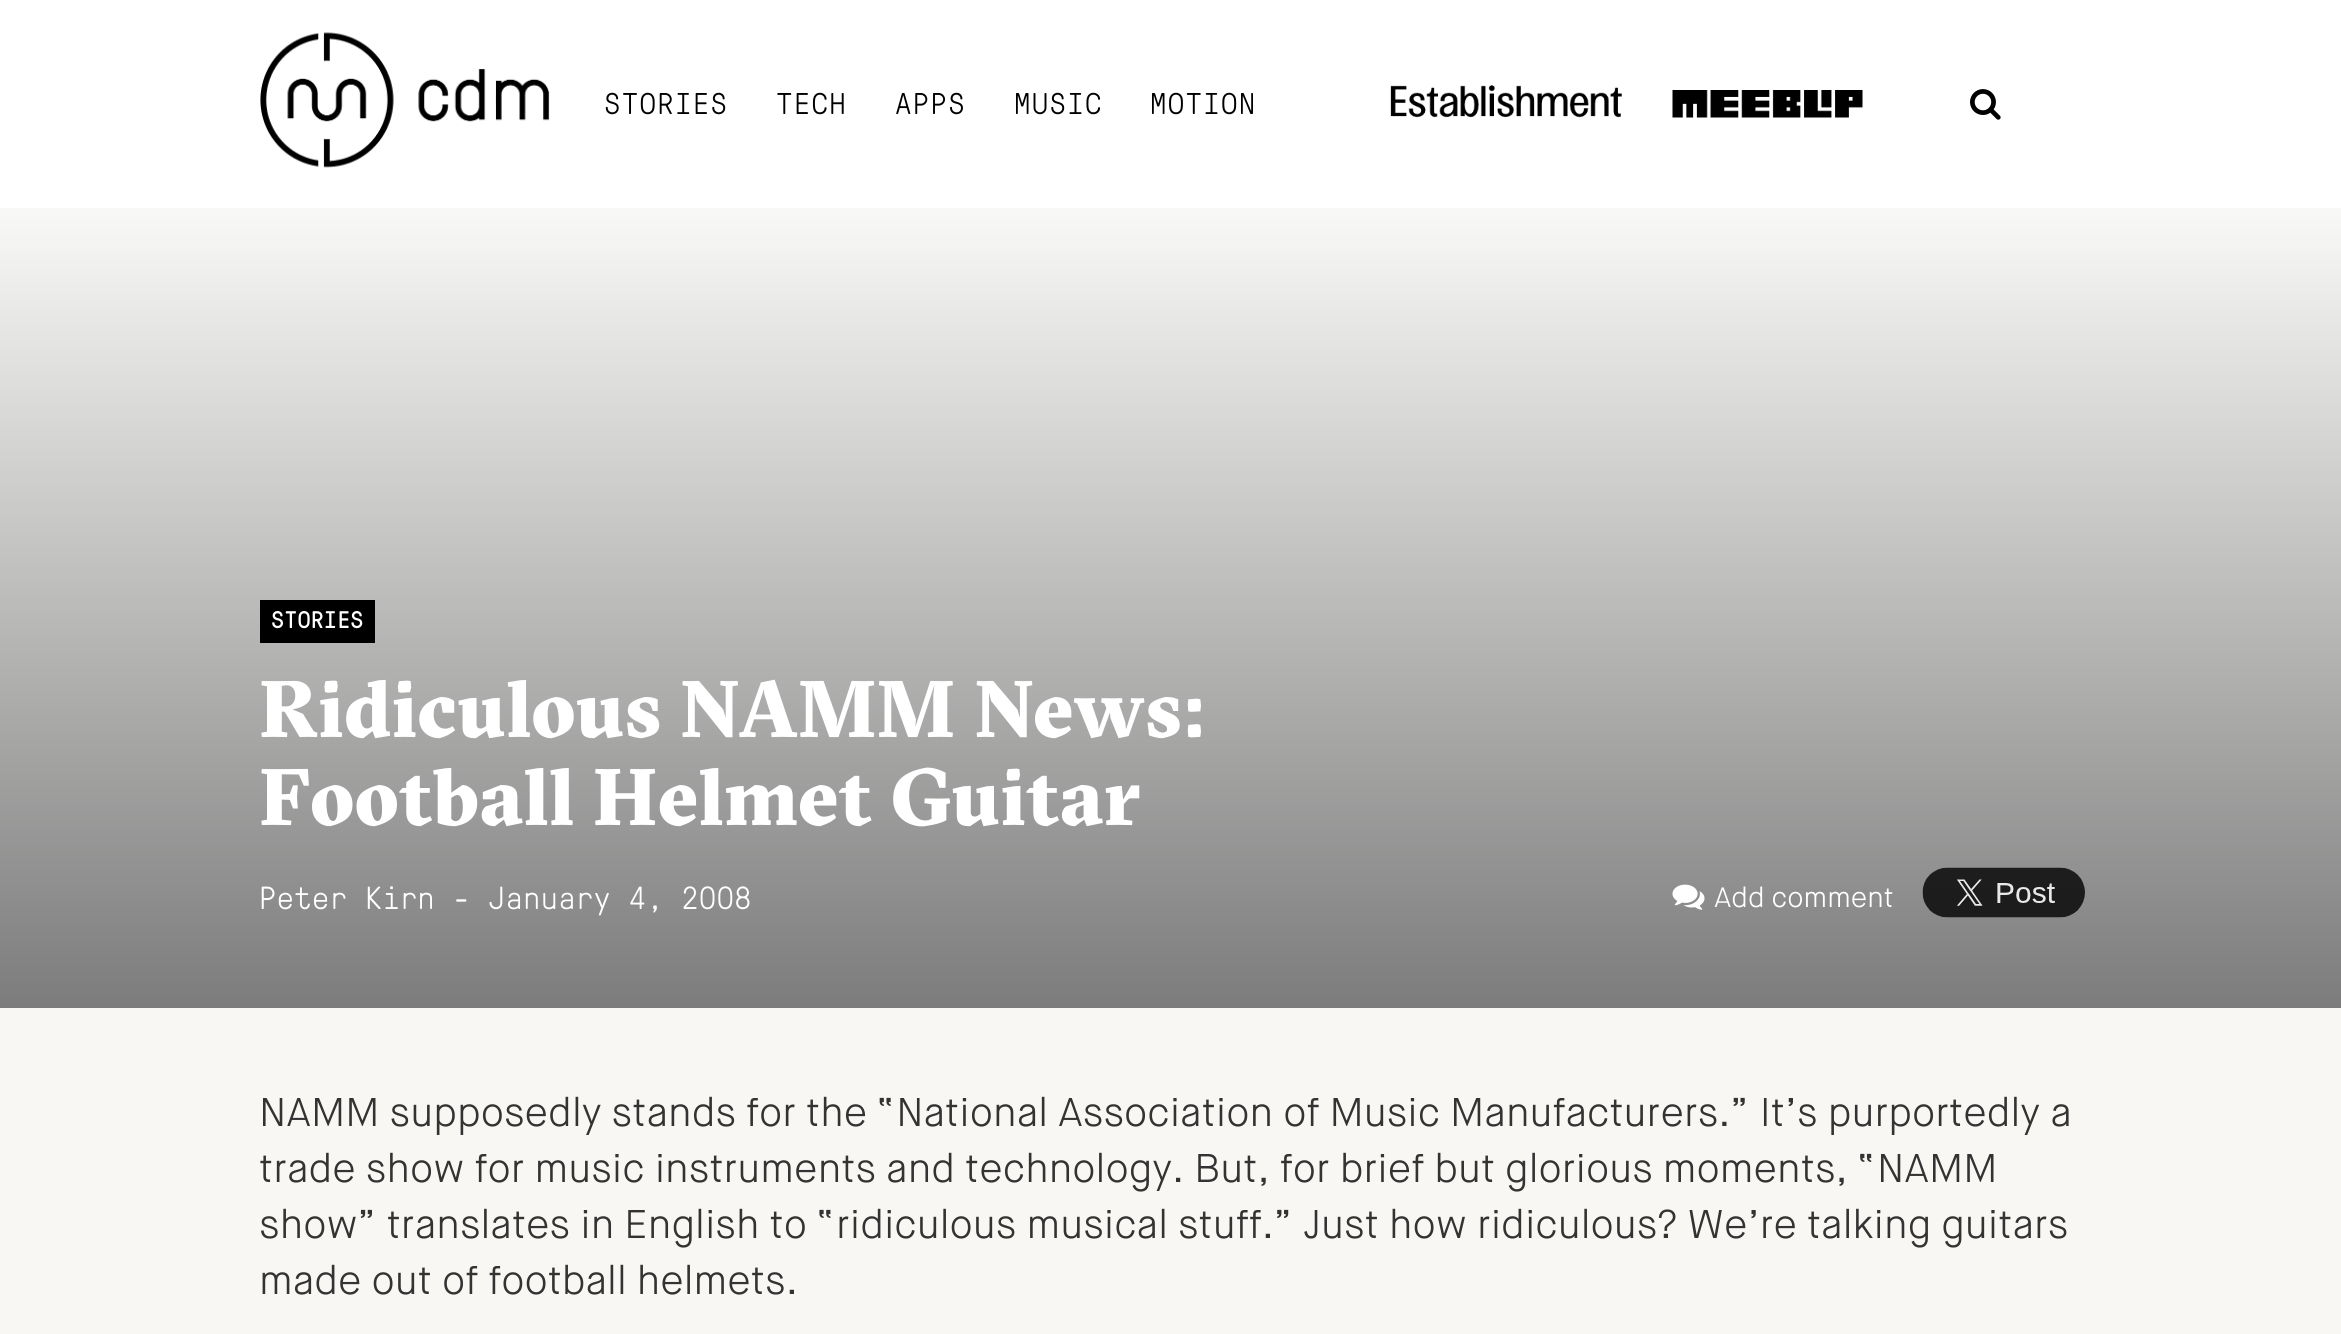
#include <cairo.h>
#include <math.h>
#include <stddef.h>


static void spaced_text(cairo_t *cr, double x, double y, const char *s, double letter, double word) {
    cairo_move_to(cr, x, y);
    while (*s) {
        char ch[5] = {0};
        int n = 0;
        do ch[n++] = *s++; while ((*s & 0xC0) == 0x80);
        cairo_show_text(cr, ch);
        cairo_rel_move_to(cr, letter + word * (*ch == ' '), 0);
    }
}

static void picture(cairo_t *cr, const char *path, double x, double y, double w, double h) {
    cairo_surface_t *image = cairo_image_surface_create_from_png(path);
    cairo_save(cr);
    cairo_set_source_surface(cr, image, x, y);
    cairo_rectangle(cr, x, y, w, h);
    cairo_fill(cr);
    cairo_restore(cr);
    cairo_surface_destroy(image);
}

int main(void) {
    cairo_surface_t *surface = cairo_image_surface_create(CAIRO_FORMAT_RGB24, 2341, 1334);
    cairo_t *cr = cairo_create(surface);
    cairo_font_options_t *options = cairo_font_options_create();
    cairo_font_options_set_hint_metrics(options, CAIRO_HINT_METRICS_OFF);
    cairo_font_options_set_hint_style(options, CAIRO_HINT_STYLE_NONE);
    cairo_set_font_options(cr, options);
    cairo_set_miter_limit(cr, 4);
    cairo_pattern_t *gradient;
    cairo_set_source_rgb(cr, 0.969, 0.965, 0.957);
    cairo_paint(cr);
    cairo_set_source_rgb(cr, 1, 1, 1);
    cairo_rectangle(cr, 0, 0, 2341, 208);
    cairo_fill(cr);
    picture(cr, "img1.png", 260, 32, 290, 136);
    cairo_select_font_face(cr, "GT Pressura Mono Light", CAIRO_FONT_SLANT_NORMAL, CAIRO_FONT_WEIGHT_NORMAL);
    cairo_set_font_size(cr, 30);
    cairo_set_source_rgb(cr, 0, 0, 0);
    spaced_text(cr, 604, 114, "STORIES", 1.25, 0);
    spaced_text(cr, 776, 114, "TECH", 1.25, 0);
    spaced_text(cr, 895, 114, "APPS", 1.25, 0);
    spaced_text(cr, 1014, 114, "MUSIC", 1.25, 0);
    spaced_text(cr, 1150, 114, "MOTION", 1.25, 0);
    picture(cr, "img2.png", 1390, 85, 232, 33);
    picture(cr, "img3.png", 1672, 90, 191, 28);
    picture(cr, "img4.png", 1970, 89, 31, 31);
    gradient = cairo_pattern_create_linear(1171, 207, 1171, 1008);
    cairo_pattern_add_color_stop_rgba(gradient, 0, 0.976, 0.976, 0.969, 1);
    cairo_pattern_add_color_stop_rgba(gradient, 1, 0.486, 0.486, 0.486, 1);
    cairo_set_source(cr, gradient);
    cairo_pattern_destroy(gradient);
    cairo_rectangle(cr, 0, 208, 2341, 800);
    cairo_fill(cr);
    cairo_set_source_rgb(cr, 0, 0, 0);
    cairo_rectangle(cr, 260, 600, 115, 43);
    cairo_fill(cr);
    cairo_select_font_face(cr, "GT Pressura Mono", CAIRO_FONT_SLANT_NORMAL, CAIRO_FONT_WEIGHT_NORMAL);
    cairo_set_font_size(cr, 24);
    cairo_set_source_rgb(cr, 1, 1, 1);
    cairo_move_to(cr, 271, 628);
    cairo_show_text(cr, "STORIES");
    cairo_select_font_face(cr, "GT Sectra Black", CAIRO_FONT_SLANT_NORMAL, CAIRO_FONT_WEIGHT_NORMAL);
    cairo_set_font_size(cr, 80);
    cairo_move_to(cr, 259, 737);
    cairo_show_text(cr, "Ridiculous NAMM News:");
    cairo_move_to(cr, 259, 825);
    cairo_show_text(cr, "Football Helmet Guitar");
    cairo_select_font_face(cr, "GT Pressura Mono Light", CAIRO_FONT_SLANT_NORMAL, CAIRO_FONT_WEIGHT_NORMAL);
    cairo_set_font_size(cr, 32);
    cairo_move_to(cr, 259, 909);
    cairo_show_text(cr, "Peter Kirn - January 4, 2008");
    picture(cr, "img5.png", 1672, 884, 33, 26);
    cairo_select_font_face(cr, "Maison Neue Light", CAIRO_FONT_SLANT_NORMAL, CAIRO_FONT_WEIGHT_NORMAL);
    cairo_set_font_size(cr, 28);
    cairo_move_to(cr, 1714, 907);
    cairo_show_text(cr, "Add comment");
    picture(cr, "img6.png", 1922, 867, 163, 51);
    cairo_set_font_size(cr, 40);
    cairo_set_source_rgb(cr, 0.2, 0.2, 0.2);
    cairo_move_to(cr, 259, 1126);
    cairo_show_text(cr, "NAMM supposedly stands for the “National Association of Music Manufacturers.” It’s purportedly a");
    cairo_move_to(cr, 259, 1182);
    cairo_show_text(cr, "trade show for music instruments and technology. But, for brief but glorious moments, “NAMM");
    cairo_move_to(cr, 259, 1238);
    cairo_show_text(cr, "show” translates in English to “ridiculous musical stuff.” Just how ridiculous? We’re talking guitars");
    cairo_move_to(cr, 259, 1294);
    cairo_show_text(cr, "made out of football helmets.");
    cairo_surface_write_to_png(surface, "page.png");
    cairo_font_options_destroy(options);
    cairo_destroy(cr);
    cairo_surface_destroy(surface);
    return 0;
}
